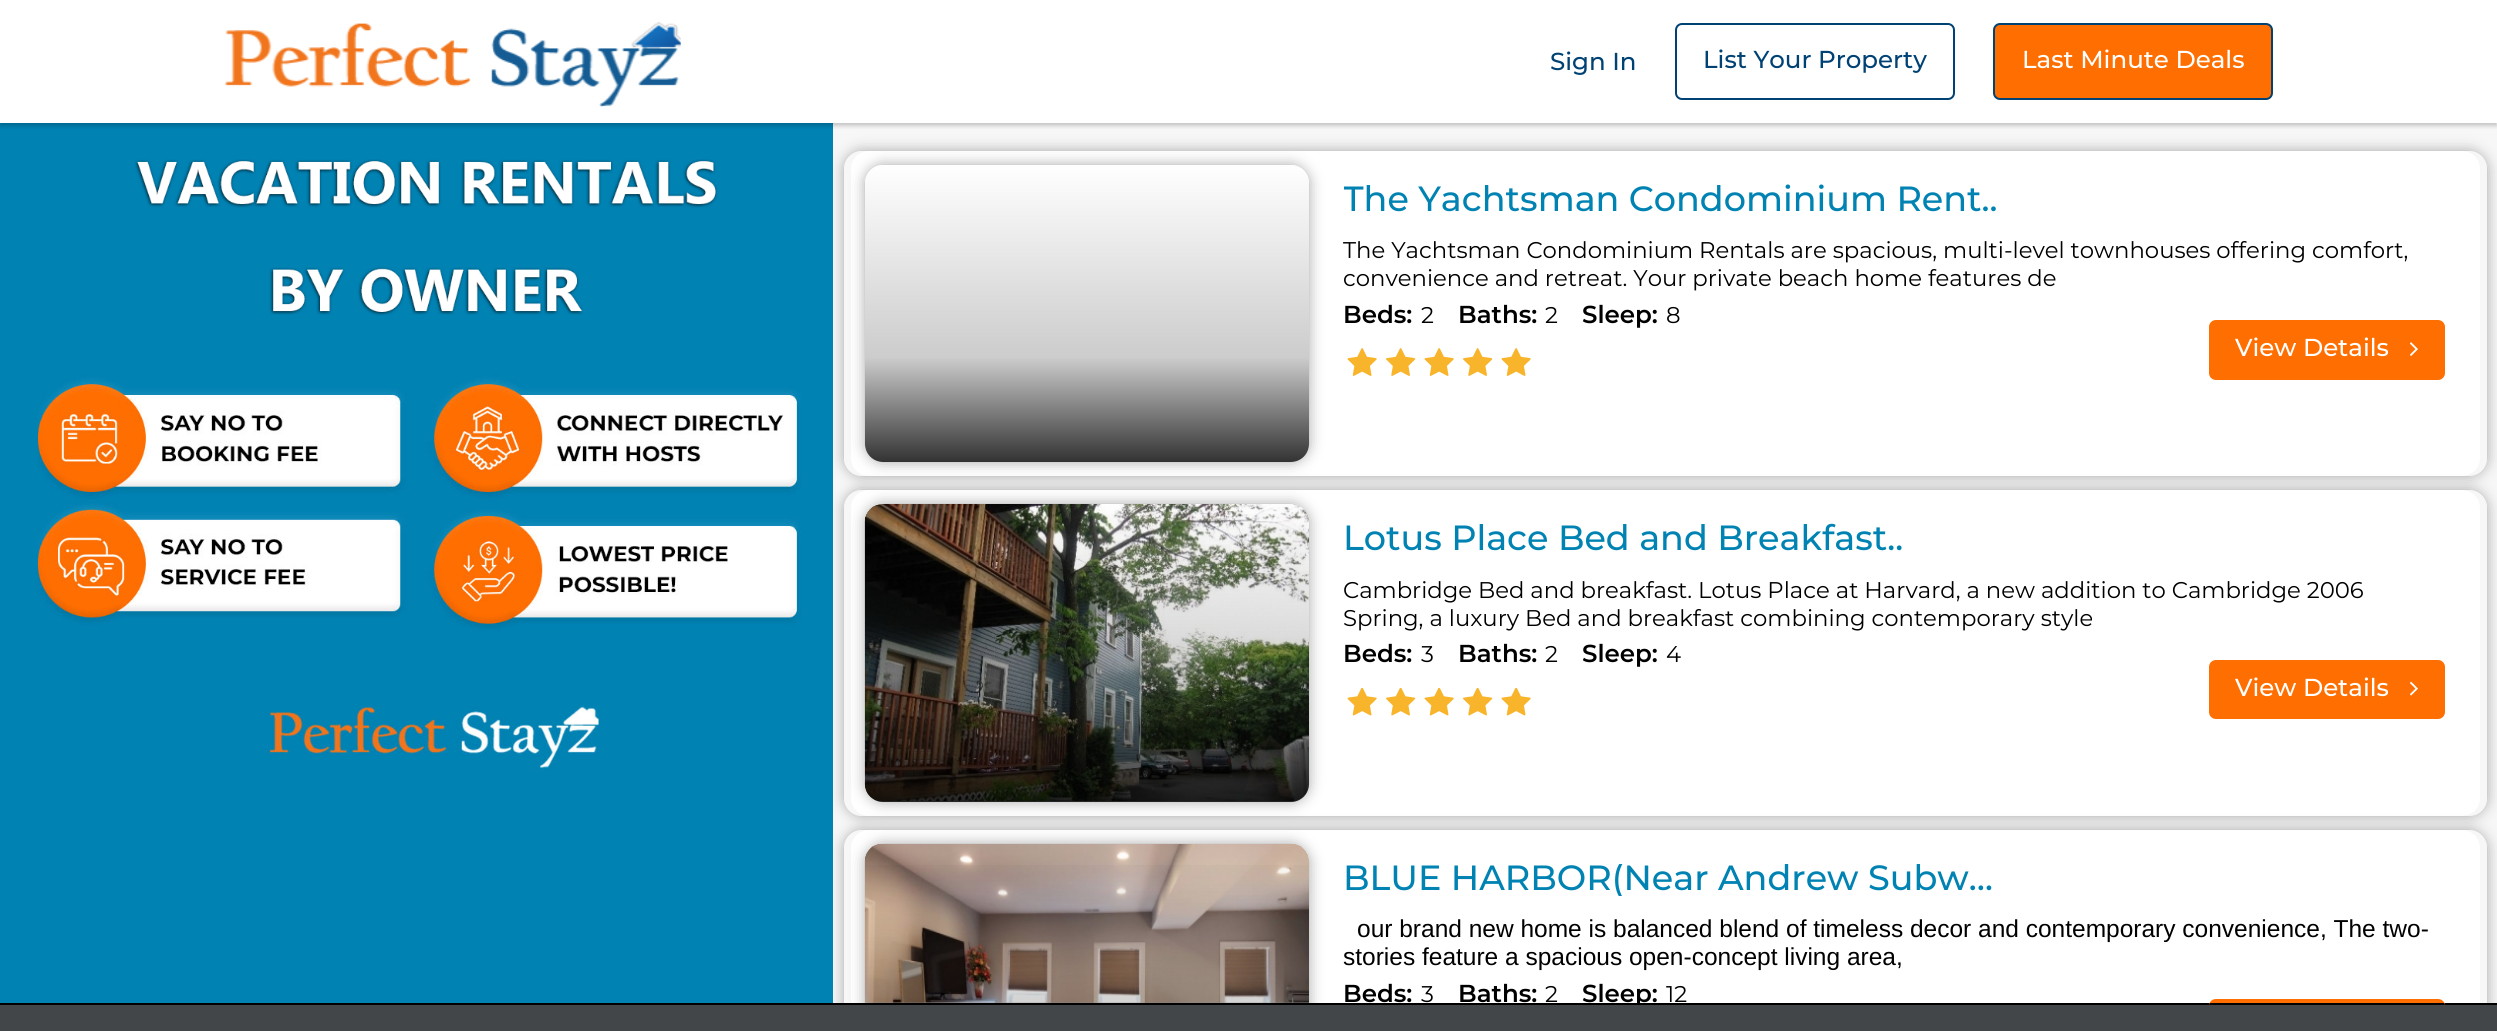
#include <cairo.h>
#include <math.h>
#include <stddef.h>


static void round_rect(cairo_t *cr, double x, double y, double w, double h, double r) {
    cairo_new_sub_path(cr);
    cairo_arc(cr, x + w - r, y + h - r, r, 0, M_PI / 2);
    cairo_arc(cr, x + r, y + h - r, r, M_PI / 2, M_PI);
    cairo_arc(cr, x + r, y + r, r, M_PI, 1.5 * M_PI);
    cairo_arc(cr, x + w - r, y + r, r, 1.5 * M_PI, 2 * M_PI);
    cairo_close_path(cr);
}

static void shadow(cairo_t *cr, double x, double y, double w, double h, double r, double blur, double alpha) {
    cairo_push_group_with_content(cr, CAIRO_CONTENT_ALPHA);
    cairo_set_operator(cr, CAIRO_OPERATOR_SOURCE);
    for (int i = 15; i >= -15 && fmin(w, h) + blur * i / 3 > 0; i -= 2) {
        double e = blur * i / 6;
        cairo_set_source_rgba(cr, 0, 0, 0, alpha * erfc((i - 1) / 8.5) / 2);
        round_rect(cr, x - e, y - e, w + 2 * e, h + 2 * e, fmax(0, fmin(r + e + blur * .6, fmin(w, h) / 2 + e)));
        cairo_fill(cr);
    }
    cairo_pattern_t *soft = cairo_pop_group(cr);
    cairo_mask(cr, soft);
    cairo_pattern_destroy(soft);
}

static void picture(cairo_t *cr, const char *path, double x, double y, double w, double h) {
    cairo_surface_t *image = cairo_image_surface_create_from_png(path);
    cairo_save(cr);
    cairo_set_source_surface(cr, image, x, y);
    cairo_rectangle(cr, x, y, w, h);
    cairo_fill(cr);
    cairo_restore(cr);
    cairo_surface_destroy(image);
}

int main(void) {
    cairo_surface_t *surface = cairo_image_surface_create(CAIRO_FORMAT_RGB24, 2497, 1031);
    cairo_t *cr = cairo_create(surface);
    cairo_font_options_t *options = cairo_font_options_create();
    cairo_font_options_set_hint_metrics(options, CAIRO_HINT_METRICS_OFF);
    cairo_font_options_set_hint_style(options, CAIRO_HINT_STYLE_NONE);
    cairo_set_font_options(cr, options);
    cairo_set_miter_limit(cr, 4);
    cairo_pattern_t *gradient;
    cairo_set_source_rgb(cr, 0.965, 0.965, 0.965);
    cairo_paint(cr);
    cairo_set_source_rgb(cr, 0, 0.51, 0.702);
    cairo_rectangle(cr, 0, 123, 833, 880);
    cairo_fill(cr);
    cairo_set_source_rgb(cr, 0, 0, 0);
    shadow(cr, 0, 4, 2497, 122, 0, 2, 0.2);
    cairo_set_source_rgb(cr, 1, 1, 1);
    cairo_rectangle(cr, 0, 0, 2497, 123);
    cairo_fill(cr);
    picture(cr, "img1.png", 225, 22, 456, 85);
    cairo_select_font_face(cr, "Montserrat Medium", CAIRO_FONT_SLANT_NORMAL, CAIRO_FONT_WEIGHT_NORMAL);
    cairo_set_font_size(cr, 24.5);
    cairo_set_source_rgb(cr, 0, 0.259, 0.455);
    cairo_move_to(cr, 1550, 70);
    cairo_show_text(cr, "Sign In");
    round_rect(cr, 1676, 24, 278, 75, 6);
    cairo_stroke(cr);
    cairo_move_to(cr, 1703, 68);
    cairo_show_text(cr, "List Your Property");
    cairo_set_source_rgb(cr, 1, 0.431, 0);
    round_rect(cr, 1994, 24, 278, 75, 6);
    cairo_fill_preserve(cr);
    cairo_set_source_rgb(cr, 0, 0.259, 0.455);
    cairo_stroke(cr);
    cairo_set_source_rgb(cr, 1, 1, 1);
    cairo_move_to(cr, 2022, 68);
    cairo_show_text(cr, "Last Minute Deals");
    picture(cr, "img2.png", 37, 159, 765, 612);
    cairo_save(cr);
    cairo_rectangle(cr, 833, 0, 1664, 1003);
    cairo_clip(cr);
    cairo_set_fill_rule(cr, CAIRO_FILL_RULE_EVEN_ODD);
    cairo_new_path(cr);
    cairo_move_to(cr, 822, 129);
    cairo_line_to(cr, 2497, 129);
    cairo_line_to(cr, 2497, 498);
    cairo_line_to(cr, 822, 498);
    cairo_close_path(cr);
    cairo_move_to(cr, 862, 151);
    cairo_line_to(cr, 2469, 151);
    cairo_curve_to(cr, 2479, 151, 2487, 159, 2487, 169);
    cairo_line_to(cr, 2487, 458);
    cairo_curve_to(cr, 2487, 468, 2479, 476, 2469, 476);
    cairo_line_to(cr, 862, 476);
    cairo_curve_to(cr, 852, 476, 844, 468, 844, 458);
    cairo_line_to(cr, 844, 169);
    cairo_curve_to(cr, 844, 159, 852, 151, 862, 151);
    cairo_close_path(cr);
    cairo_clip(cr);
    cairo_set_source_rgb(cr, 0.655, 0.655, 0.655);
    shadow(cr, 844, 151, 1643, 325, 18, 7, 1);
    cairo_restore(cr);
    round_rect(cr, 851, 151, 1629, 325, 18);
    cairo_fill(cr);
    cairo_save(cr);
    cairo_set_fill_rule(cr, CAIRO_FILL_RULE_EVEN_ODD);
    cairo_new_path(cr);
    cairo_move_to(cr, 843, 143);
    cairo_line_to(cr, 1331, 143);
    cairo_line_to(cr, 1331, 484);
    cairo_line_to(cr, 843, 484);
    cairo_close_path(cr);
    cairo_move_to(cr, 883, 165);
    cairo_line_to(cr, 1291, 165);
    cairo_curve_to(cr, 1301, 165, 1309, 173, 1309, 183);
    cairo_line_to(cr, 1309, 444);
    cairo_curve_to(cr, 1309, 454, 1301, 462, 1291, 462);
    cairo_line_to(cr, 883, 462);
    cairo_curve_to(cr, 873, 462, 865, 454, 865, 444);
    cairo_line_to(cr, 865, 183);
    cairo_curve_to(cr, 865, 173, 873, 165, 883, 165);
    cairo_close_path(cr);
    cairo_clip(cr);
    cairo_set_source_rgb(cr, 0.655, 0.655, 0.655);
    shadow(cr, 865, 165, 444, 297, 18, 7, 1);
    cairo_restore(cr);
    gradient = cairo_pattern_create_linear(1087, 164, 1087, 462);
    cairo_pattern_add_color_stop_rgba(gradient, 0, 0, 0, 0, 0);
    cairo_pattern_add_color_stop_rgba(gradient, 0.65, 0, 0, 0, 0.2);
    cairo_pattern_add_color_stop_rgba(gradient, 1, 0, 0, 0, 0.8);
    cairo_set_source(cr, gradient);
    cairo_pattern_destroy(gradient);
    round_rect(cr, 865, 165, 444, 297, 18);
    cairo_fill(cr);
    cairo_save(cr);
    cairo_rectangle(cr, 1344, 182, 665, 35);
    cairo_clip(cr);
    cairo_set_font_size(cr, 35);
    cairo_set_source_rgb(cr, 0, 0.514, 0.702);
    cairo_move_to(cr, 1343, 211);
    cairo_show_text(cr, "The Yachtsman Condominium Rent..");
    cairo_restore(cr);
    cairo_select_font_face(cr, "Montserrat", CAIRO_FONT_SLANT_NORMAL, CAIRO_FONT_WEIGHT_NORMAL);
    cairo_set_font_size(cr, 22.75);
    cairo_set_source_rgb(cr, 0, 0, 0);
    cairo_move_to(cr, 1343, 258);
    cairo_show_text(cr, "The Yachtsman Condominium Rentals are spacious, multi-level townhouses offering comfort,");
    cairo_move_to(cr, 1343, 286);
    cairo_show_text(cr, "convenience and retreat. Your private beach home features de");
    cairo_select_font_face(cr, "Montserrat SemiBold", CAIRO_FONT_SLANT_NORMAL, CAIRO_FONT_WEIGHT_NORMAL);
    cairo_set_font_size(cr, 24.5);
    cairo_move_to(cr, 1343, 323);
    cairo_show_text(cr, "Beds:");
    cairo_select_font_face(cr, "Montserrat", CAIRO_FONT_SLANT_NORMAL, CAIRO_FONT_WEIGHT_NORMAL);
    cairo_set_font_size(cr, 22.75);
    cairo_move_to(cr, 1421, 323);
    cairo_show_text(cr, "2");
    cairo_select_font_face(cr, "Montserrat SemiBold", CAIRO_FONT_SLANT_NORMAL, CAIRO_FONT_WEIGHT_NORMAL);
    cairo_set_font_size(cr, 24.5);
    cairo_move_to(cr, 1458, 323);
    cairo_show_text(cr, "Baths:");
    cairo_select_font_face(cr, "Montserrat", CAIRO_FONT_SLANT_NORMAL, CAIRO_FONT_WEIGHT_NORMAL);
    cairo_set_font_size(cr, 22.75);
    cairo_move_to(cr, 1545, 323);
    cairo_show_text(cr, "2");
    cairo_select_font_face(cr, "Montserrat SemiBold", CAIRO_FONT_SLANT_NORMAL, CAIRO_FONT_WEIGHT_NORMAL);
    cairo_set_font_size(cr, 24.5);
    cairo_move_to(cr, 1582, 323);
    cairo_show_text(cr, "Sleep:");
    cairo_select_font_face(cr, "Montserrat", CAIRO_FONT_SLANT_NORMAL, CAIRO_FONT_WEIGHT_NORMAL);
    cairo_set_font_size(cr, 22.75);
    cairo_move_to(cr, 1666, 323);
    cairo_show_text(cr, "8");
    picture(cr, "img3.png", 1347, 348, 30, 28);
    picture(cr, "img4.png", 1386, 348, 30, 28);
    picture(cr, "img3.png", 1424, 348, 30, 28);
    picture(cr, "img4.png", 1463, 348, 30, 28);
    picture(cr, "img3.png", 1501, 348, 30, 28);
    cairo_set_source_rgb(cr, 1, 0.431, 0);
    round_rect(cr, 2209, 320, 236, 60, 7);
    cairo_fill(cr);
    cairo_select_font_face(cr, "Montserrat Medium", CAIRO_FONT_SLANT_NORMAL, CAIRO_FONT_WEIGHT_NORMAL);
    cairo_set_font_size(cr, 24.5);
    cairo_set_source_rgb(cr, 1, 1, 1);
    cairo_move_to(cr, 2235, 356);
    cairo_show_text(cr, "View Details");
    picture(cr, "img5.png", 2410, 342, 8, 14);
    cairo_save(cr);
    cairo_rectangle(cr, 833, 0, 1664, 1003);
    cairo_clip(cr);
    cairo_set_fill_rule(cr, CAIRO_FILL_RULE_EVEN_ODD);
    cairo_new_path(cr);
    cairo_move_to(cr, 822, 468);
    cairo_line_to(cr, 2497, 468);
    cairo_line_to(cr, 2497, 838);
    cairo_line_to(cr, 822, 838);
    cairo_close_path(cr);
    cairo_move_to(cr, 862, 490);
    cairo_line_to(cr, 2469, 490);
    cairo_curve_to(cr, 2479, 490, 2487, 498, 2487, 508);
    cairo_line_to(cr, 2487, 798);
    cairo_curve_to(cr, 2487, 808, 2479, 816, 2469, 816);
    cairo_line_to(cr, 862, 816);
    cairo_curve_to(cr, 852, 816, 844, 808, 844, 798);
    cairo_line_to(cr, 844, 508);
    cairo_curve_to(cr, 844, 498, 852, 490, 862, 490);
    cairo_close_path(cr);
    cairo_clip(cr);
    cairo_set_source_rgb(cr, 0.655, 0.655, 0.655);
    shadow(cr, 844, 490, 1643, 326, 18, 7, 1);
    cairo_restore(cr);
    round_rect(cr, 851, 490, 1629, 326, 18);
    cairo_fill(cr);
    cairo_set_source_rgb(cr, 0.655, 0.655, 0.655);
    shadow(cr, 865, 504, 444, 298, 18, 7, 1);
    cairo_save(cr);
    round_rect(cr, 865, 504, 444, 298, 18);
    cairo_clip(cr);
    shadow(cr, 865, 504, 444, 298, 18, 7, 1);
    cairo_restore(cr);
    picture(cr, "img6.png", 864, 504, 445, 298);
    gradient = cairo_pattern_create_linear(1087, 504, 1087, 802);
    cairo_pattern_add_color_stop_rgba(gradient, 0, 0, 0, 0, 0);
    cairo_pattern_add_color_stop_rgba(gradient, 0.65, 0, 0, 0, 0.2);
    cairo_pattern_add_color_stop_rgba(gradient, 1, 0, 0, 0, 0.8);
    cairo_set_source(cr, gradient);
    cairo_pattern_destroy(gradient);
    round_rect(cr, 865, 504, 444, 298, 18);
    cairo_fill(cr);
    cairo_set_font_size(cr, 35);
    cairo_set_source_rgb(cr, 0, 0.514, 0.702);
    cairo_move_to(cr, 1343, 550);
    cairo_show_text(cr, "Lotus Place Bed and Breakfast..");
    cairo_select_font_face(cr, "Montserrat", CAIRO_FONT_SLANT_NORMAL, CAIRO_FONT_WEIGHT_NORMAL);
    cairo_set_font_size(cr, 22.75);
    cairo_set_source_rgb(cr, 0, 0, 0);
    cairo_move_to(cr, 1343, 598);
    cairo_show_text(cr, "Cambridge Bed and breakfast. Lotus Place at Harvard, a new addition to Cambridge 2006");
    cairo_move_to(cr, 1343, 626);
    cairo_show_text(cr, "Spring, a luxury Bed and breakfast combining contemporary style");
    cairo_select_font_face(cr, "Montserrat SemiBold", CAIRO_FONT_SLANT_NORMAL, CAIRO_FONT_WEIGHT_NORMAL);
    cairo_set_font_size(cr, 24.5);
    cairo_move_to(cr, 1343, 662);
    cairo_show_text(cr, "Beds:");
    cairo_select_font_face(cr, "Montserrat", CAIRO_FONT_SLANT_NORMAL, CAIRO_FONT_WEIGHT_NORMAL);
    cairo_set_font_size(cr, 22.75);
    cairo_move_to(cr, 1421, 662);
    cairo_show_text(cr, "3");
    cairo_select_font_face(cr, "Montserrat SemiBold", CAIRO_FONT_SLANT_NORMAL, CAIRO_FONT_WEIGHT_NORMAL);
    cairo_set_font_size(cr, 24.5);
    cairo_move_to(cr, 1458, 662);
    cairo_show_text(cr, "Baths:");
    cairo_select_font_face(cr, "Montserrat", CAIRO_FONT_SLANT_NORMAL, CAIRO_FONT_WEIGHT_NORMAL);
    cairo_set_font_size(cr, 22.75);
    cairo_move_to(cr, 1545, 662);
    cairo_show_text(cr, "2");
    cairo_select_font_face(cr, "Montserrat SemiBold", CAIRO_FONT_SLANT_NORMAL, CAIRO_FONT_WEIGHT_NORMAL);
    cairo_set_font_size(cr, 24.5);
    cairo_move_to(cr, 1582, 662);
    cairo_show_text(cr, "Sleep:");
    cairo_select_font_face(cr, "Montserrat", CAIRO_FONT_SLANT_NORMAL, CAIRO_FONT_WEIGHT_NORMAL);
    cairo_set_font_size(cr, 22.75);
    cairo_move_to(cr, 1666, 662);
    cairo_show_text(cr, "4");
    picture(cr, "img7.png", 1347, 688, 30, 28);
    picture(cr, "img8.png", 1386, 688, 30, 28);
    picture(cr, "img7.png", 1424, 688, 30, 28);
    picture(cr, "img8.png", 1463, 688, 30, 28);
    picture(cr, "img7.png", 1501, 688, 30, 28);
    cairo_set_source_rgb(cr, 1, 0.431, 0);
    round_rect(cr, 2209, 660, 236, 59, 7);
    cairo_fill(cr);
    cairo_select_font_face(cr, "Montserrat Medium", CAIRO_FONT_SLANT_NORMAL, CAIRO_FONT_WEIGHT_NORMAL);
    cairo_set_font_size(cr, 24.5);
    cairo_set_source_rgb(cr, 1, 1, 1);
    cairo_move_to(cr, 2235, 696);
    cairo_show_text(cr, "View Details");
    picture(cr, "img9.png", 2410, 681, 8, 15);
    cairo_set_source_rgb(cr, 0.263, 0.275, 0.282);
    cairo_rectangle(cr, 0, 1005, 2497, 26);
    cairo_fill(cr);
    cairo_set_source_rgb(cr, 0, 0, 0);
    cairo_rectangle(cr, 0, 1003, 2497, 2);
    cairo_fill(cr);
    cairo_save(cr);
    cairo_rectangle(cr, 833, 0, 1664, 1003);
    cairo_clip(cr);
    cairo_set_fill_rule(cr, CAIRO_FILL_RULE_EVEN_ODD);
    cairo_new_path(cr);
    cairo_move_to(cr, 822, 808);
    cairo_line_to(cr, 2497, 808);
    cairo_line_to(cr, 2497, 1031);
    cairo_line_to(cr, 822, 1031);
    cairo_close_path(cr);
    cairo_move_to(cr, 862, 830);
    cairo_line_to(cr, 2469, 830);
    cairo_curve_to(cr, 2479, 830, 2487, 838, 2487, 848);
    cairo_line_to(cr, 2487, 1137);
    cairo_curve_to(cr, 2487, 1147, 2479, 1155, 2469, 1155);
    cairo_line_to(cr, 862, 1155);
    cairo_curve_to(cr, 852, 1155, 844, 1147, 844, 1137);
    cairo_line_to(cr, 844, 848);
    cairo_curve_to(cr, 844, 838, 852, 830, 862, 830);
    cairo_close_path(cr);
    cairo_clip(cr);
    cairo_set_source_rgb(cr, 0.655, 0.655, 0.655);
    shadow(cr, 844, 830, 1643, 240, 18, 7, 1);
    cairo_restore(cr);
    cairo_set_source_rgb(cr, 1, 1, 1);
    cairo_new_path(cr);
    cairo_move_to(cr, 869, 830);
    cairo_line_to(cr, 2462, 830);
    cairo_curve_to(cr, 2472, 830, 2480, 838, 2480, 848);
    cairo_line_to(cr, 2480, 1003);
    cairo_line_to(cr, 851, 1003);
    cairo_line_to(cr, 851, 848);
    cairo_curve_to(cr, 851, 838, 859, 830, 869, 830);
    cairo_close_path(cr);
    cairo_fill(cr);
    cairo_save(cr);
    cairo_rectangle(cr, 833, 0, 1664, 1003);
    cairo_clip(cr);
    cairo_set_source_rgb(cr, 0.655, 0.655, 0.655);
    shadow(cr, 865, 844, 444, 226, 18, 7, 1);
    cairo_restore(cr);
    picture(cr, "img10.png", 864, 843, 445, 160);
    gradient = cairo_pattern_create_linear(1087, 844, 1087, 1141);
    cairo_pattern_add_color_stop_rgba(gradient, 0, 0, 0, 0, 0);
    cairo_pattern_add_color_stop_rgba(gradient, 0.65, 0, 0, 0, 0.2);
    cairo_pattern_add_color_stop_rgba(gradient, 1, 0, 0, 0, 0.8);
    cairo_set_source(cr, gradient);
    cairo_pattern_destroy(gradient);
    cairo_rectangle(cr, 865, 865, 444, 138);
    cairo_fill(cr);
    cairo_save(cr);
    cairo_rectangle(cr, 1344, 861, 665, 35);
    cairo_clip(cr);
    cairo_set_font_size(cr, 35);
    cairo_set_source_rgb(cr, 0, 0.514, 0.702);
    cairo_move_to(cr, 1343, 890);
    cairo_show_text(cr, "BLUE HARBOR(Near Andrew Subw…");
    cairo_restore(cr);
    cairo_select_font_face(cr, "Liberation Sans", CAIRO_FONT_SLANT_NORMAL, CAIRO_FONT_WEIGHT_NORMAL);
    cairo_set_source_rgb(cr, 0, 0, 0);
    cairo_move_to(cr, 1357, 937);
    cairo_show_text(cr, "our brand new home is balanced blend of timeless decor and contemporary convenience, The two-");
    cairo_move_to(cr, 1343, 965);
    cairo_show_text(cr, "stories feature a spacious open-concept living area,");
    cairo_select_font_face(cr, "Montserrat SemiBold", CAIRO_FONT_SLANT_NORMAL, CAIRO_FONT_WEIGHT_NORMAL);
    cairo_move_to(cr, 1343, 1002);
    cairo_show_text(cr, "Beds:");
    cairo_select_font_face(cr, "Montserrat", CAIRO_FONT_SLANT_NORMAL, CAIRO_FONT_WEIGHT_NORMAL);
    cairo_set_font_size(cr, 22.75);
    cairo_move_to(cr, 1421, 1002);
    cairo_show_text(cr, "3");
    cairo_select_font_face(cr, "Montserrat SemiBold", CAIRO_FONT_SLANT_NORMAL, CAIRO_FONT_WEIGHT_NORMAL);
    cairo_set_font_size(cr, 24.5);
    cairo_move_to(cr, 1458, 1002);
    cairo_show_text(cr, "Baths:");
    cairo_select_font_face(cr, "Montserrat", CAIRO_FONT_SLANT_NORMAL, CAIRO_FONT_WEIGHT_NORMAL);
    cairo_set_font_size(cr, 22.75);
    cairo_move_to(cr, 1545, 1002);
    cairo_show_text(cr, "2");
    cairo_save(cr);
    cairo_rectangle(cr, 1309, 844, 1157, 159);
    cairo_clip(cr);
    cairo_select_font_face(cr, "Montserrat SemiBold", CAIRO_FONT_SLANT_NORMAL, CAIRO_FONT_WEIGHT_NORMAL);
    cairo_set_font_size(cr, 24.5);
    cairo_move_to(cr, 1582, 1002);
    cairo_show_text(cr, "Sleep:");
    cairo_restore(cr);
    cairo_move_to(cr, 1666, 1002);
    cairo_show_text(cr, "12");
    cairo_set_source_rgb(cr, 1, 0.431, 0);
    cairo_new_path(cr);
    cairo_move_to(cr, 2216, 999);
    cairo_line_to(cr, 2438, 999);
    cairo_curve_to(cr, 2442, 999, 2445, 1002, 2445, 1006);
    cairo_line_to(cr, 2445, 1003);
    cairo_line_to(cr, 2209, 1003);
    cairo_line_to(cr, 2209, 1006);
    cairo_curve_to(cr, 2209, 1002, 2212, 999, 2216, 999);
    cairo_close_path(cr);
    cairo_fill(cr);
    cairo_surface_write_to_png(surface, "page.png");
    cairo_font_options_destroy(options);
    cairo_destroy(cr);
    cairo_surface_destroy(surface);
    return 0;
}
